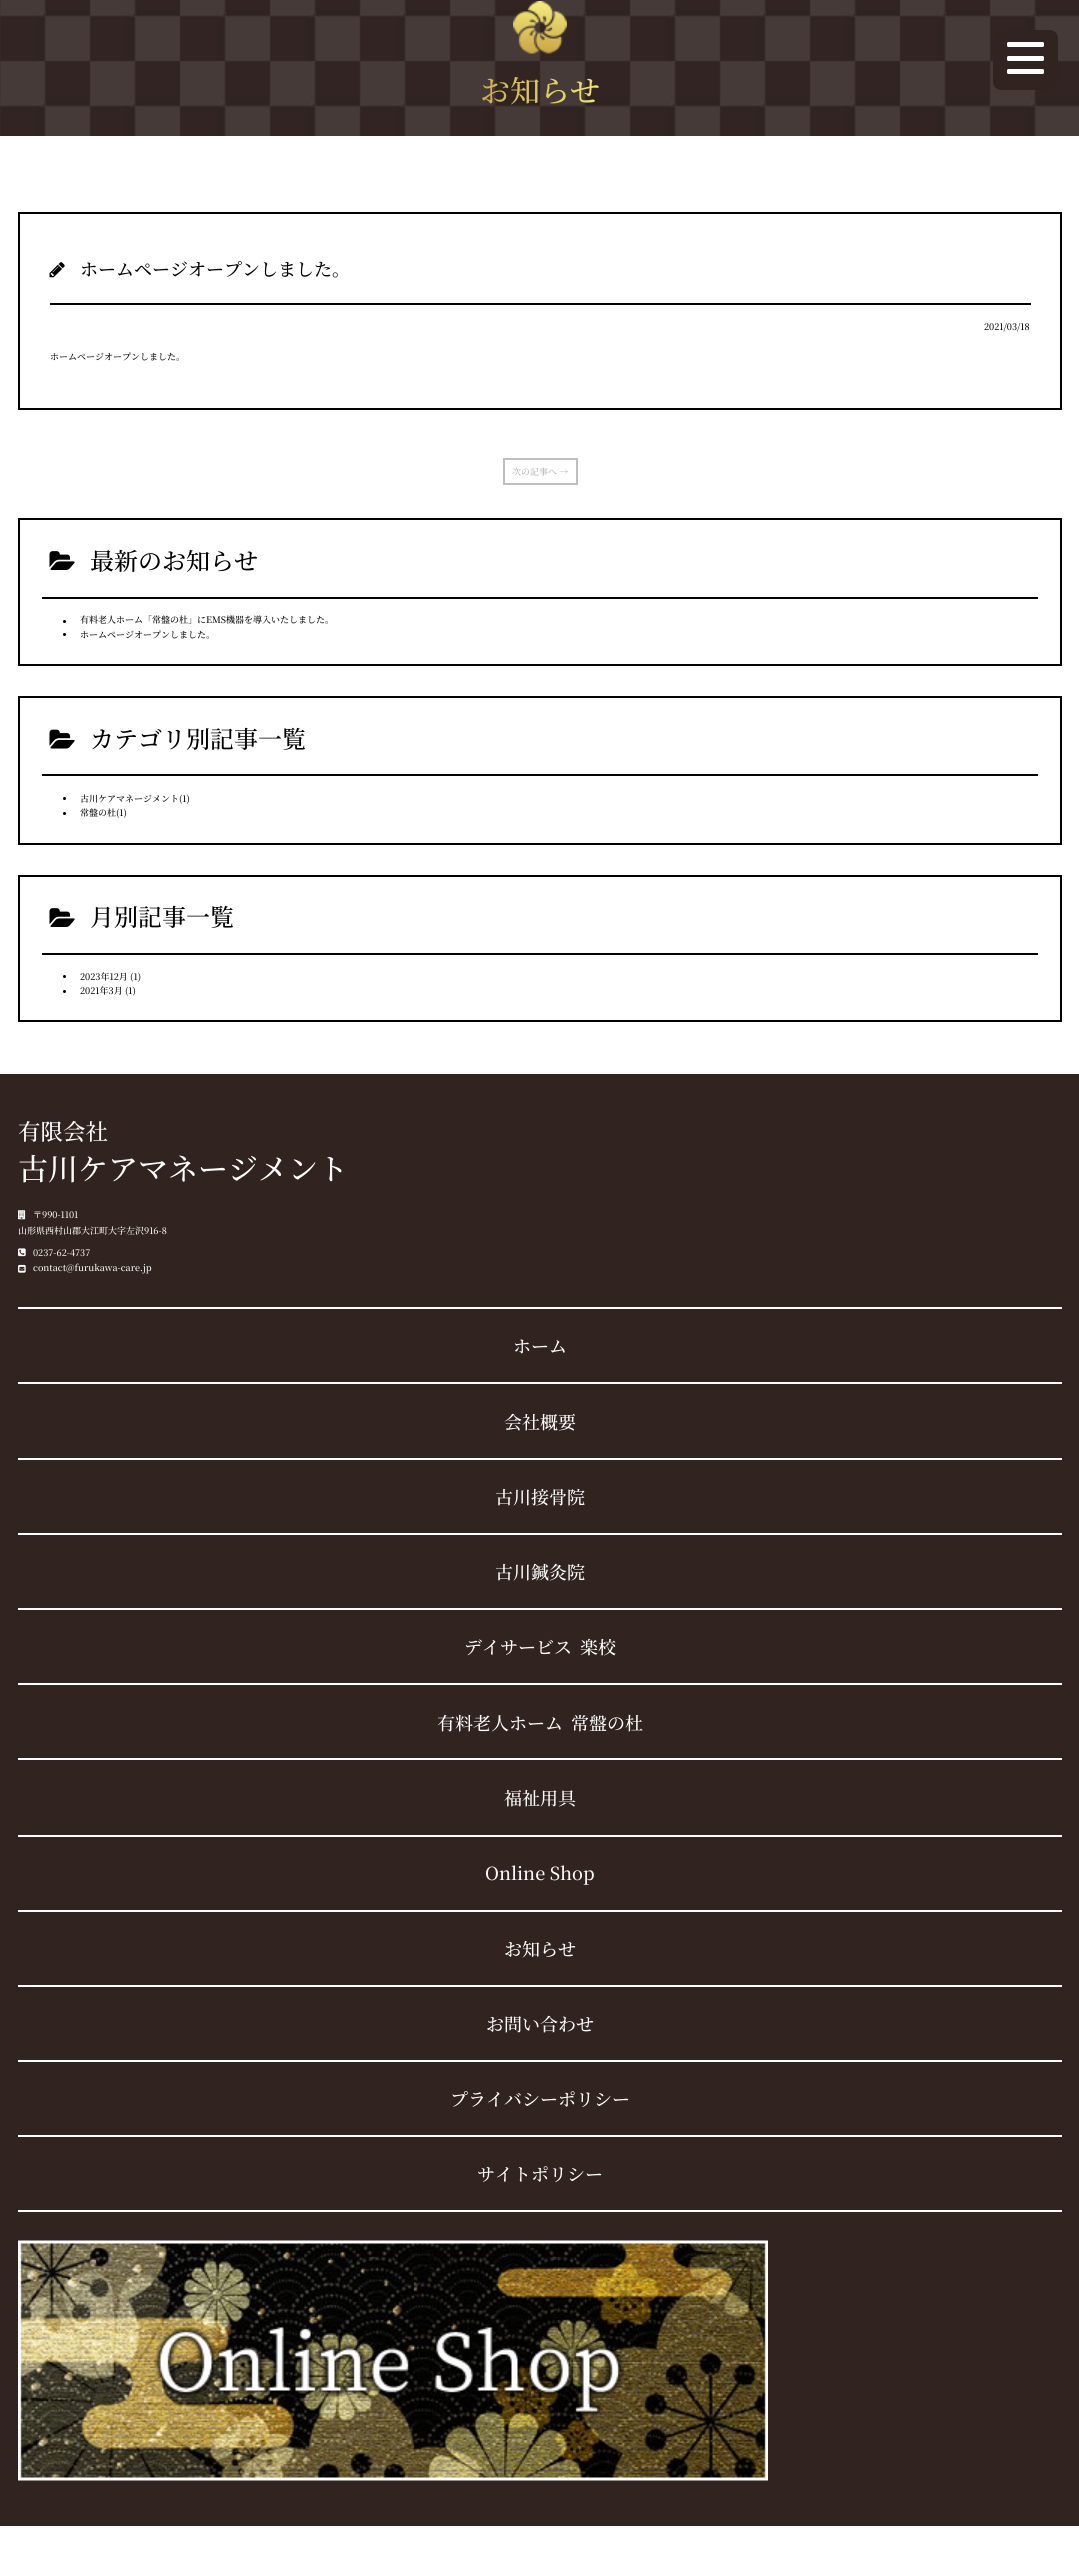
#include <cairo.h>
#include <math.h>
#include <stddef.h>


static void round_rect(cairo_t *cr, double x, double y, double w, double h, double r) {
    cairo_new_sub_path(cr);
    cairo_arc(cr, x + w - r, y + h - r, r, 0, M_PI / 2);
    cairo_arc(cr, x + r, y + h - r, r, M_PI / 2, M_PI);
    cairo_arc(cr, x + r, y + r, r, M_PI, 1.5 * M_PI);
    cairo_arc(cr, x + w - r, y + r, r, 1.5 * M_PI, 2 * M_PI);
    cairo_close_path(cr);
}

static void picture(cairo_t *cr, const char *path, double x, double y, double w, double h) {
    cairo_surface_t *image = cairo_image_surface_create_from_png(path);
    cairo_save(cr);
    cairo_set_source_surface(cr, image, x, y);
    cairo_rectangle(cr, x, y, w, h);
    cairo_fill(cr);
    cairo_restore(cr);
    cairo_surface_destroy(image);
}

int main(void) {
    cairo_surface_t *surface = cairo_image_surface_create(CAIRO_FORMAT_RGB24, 1079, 2552);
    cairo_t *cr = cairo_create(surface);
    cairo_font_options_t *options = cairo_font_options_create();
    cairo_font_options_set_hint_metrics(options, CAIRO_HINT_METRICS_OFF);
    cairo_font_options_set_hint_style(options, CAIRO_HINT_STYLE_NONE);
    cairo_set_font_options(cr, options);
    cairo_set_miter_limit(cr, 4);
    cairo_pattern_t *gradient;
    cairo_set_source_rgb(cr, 1, 1, 1);
    cairo_paint(cr);
    picture(cr, "img1.png", 0, 0, 1079, 136);
    picture(cr, "img2.png", 513, 1, 54, 53);
    cairo_select_font_face(cr, "Noto Serif JP ExtraLight", CAIRO_FONT_SLANT_NORMAL, CAIRO_FONT_WEIGHT_NORMAL);
    cairo_set_font_size(cr, 30);
    gradient = cairo_pattern_create_linear(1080, 54, 0, 54);
    cairo_pattern_add_color_stop_rgba(gradient, 0, 0.788, 0.647, 0.275, 1);
    cairo_pattern_add_color_stop_rgba(gradient, 0.14, 0.961, 0.929, 0.494, 1);
    cairo_pattern_add_color_stop_rgba(gradient, 0.29, 0.788, 0.647, 0.275, 1);
    cairo_pattern_add_color_stop_rgba(gradient, 0.43, 0.961, 0.929, 0.494, 1);
    cairo_pattern_add_color_stop_rgba(gradient, 0.57, 0.788, 0.647, 0.275, 1);
    cairo_pattern_add_color_stop_rgba(gradient, 0.71, 0.961, 0.929, 0.494, 1);
    cairo_pattern_add_color_stop_rgba(gradient, 0.86, 0.788, 0.647, 0.275, 1);
    cairo_pattern_add_color_stop_rgba(gradient, 1, 0.961, 0.929, 0.494, 1);
    cairo_set_source(cr, gradient);
    cairo_pattern_destroy(gradient);
    cairo_move_to(cr, 480, 102);
    cairo_show_text(cr, "お知らせ");
    cairo_set_source_rgb(cr, 0.192, 0.141, 0.125);
    round_rect(cr, 993, 30, 65, 60, 8);
    cairo_fill(cr);
    cairo_set_source_rgb(cr, 1, 1, 1);
    round_rect(cr, 1007, 56, 37, 5, 1.5);
    cairo_fill(cr);
    round_rect(cr, 1007, 42, 37, 5, 1.5);
    cairo_fill(cr);
    round_rect(cr, 1007, 69, 37, 5, 1.5);
    cairo_fill(cr);
    cairo_rectangle(cr, 19, 213, 1042, 196);
    cairo_set_source_rgb(cr, 0, 0, 0);
    cairo_stroke(cr);
    cairo_rectangle(cr, 50, 303, 981, 2);
    cairo_fill(cr);
    picture(cr, "img3.png", 49, 262, 16, 16);
    cairo_set_font_size(cr, 18);
    cairo_move_to(cr, 80, 276);
    cairo_show_text(cr, "ホームページオープンしました。");
    cairo_set_font_size(cr, 9);
    cairo_move_to(cr, 984, 330);
    cairo_show_text(cr, "2021/03/18");
    cairo_move_to(cr, 50, 360);
    cairo_show_text(cr, "ホームページオープンしました。");
    cairo_rectangle(cr, 504, 459, 73, 25);
    cairo_set_source_rgb(cr, 0.749, 0.749, 0.749);
    cairo_stroke(cr);
    cairo_set_source_rgb(cr, 0.698, 0.698, 0.698);
    cairo_move_to(cr, 512, 475);
    cairo_show_text(cr, "次の記事へ →");
    cairo_rectangle(cr, 19, 519, 1042, 146);
    cairo_set_source_rgb(cr, 0, 0, 0);
    cairo_stroke(cr);
    cairo_rectangle(cr, 42, 597, 996, 2);
    cairo_fill(cr);
    picture(cr, "img4.png", 49, 551, 26, 19);
    cairo_set_font_size(cr, 24);
    cairo_move_to(cr, 90, 570);
    cairo_show_text(cr, "最新のお知らせ");
    cairo_new_path(cr);
    cairo_arc(cr, 64.5, 621.5, 1.5, 0, 2 * M_PI);
    cairo_fill(cr);
    cairo_set_font_size(cr, 9);
    cairo_move_to(cr, 80, 623);
    cairo_show_text(cr, "有料老人ホーム「常盤の杜」にEMS機器を導入いたしました。");
    cairo_new_path(cr);
    cairo_arc(cr, 64.5, 634.5, 1.5, 0, 2 * M_PI);
    cairo_fill(cr);
    cairo_move_to(cr, 80, 638);
    cairo_show_text(cr, "ホームページオープンしました。");
    cairo_rectangle(cr, 19, 697, 1042, 147);
    cairo_stroke(cr);
    cairo_rectangle(cr, 42, 774, 996, 2);
    cairo_fill(cr);
    picture(cr, "img5.png", 49, 729, 26, 20);
    cairo_set_font_size(cr, 24);
    cairo_move_to(cr, 90, 748);
    cairo_show_text(cr, "カテゴリ別記事一覧");
    cairo_new_path(cr);
    cairo_arc(cr, 64.5, 798.5, 1.5, 0, 2 * M_PI);
    cairo_fill(cr);
    cairo_set_font_size(cr, 9);
    cairo_move_to(cr, 80, 802);
    cairo_show_text(cr, "古川ケアマネージメント(1)");
    cairo_new_path(cr);
    cairo_arc(cr, 64.5, 813.5, 1.5, 0, 2 * M_PI);
    cairo_fill(cr);
    cairo_move_to(cr, 80, 816);
    cairo_show_text(cr, "常盤の杜(1)");
    cairo_rectangle(cr, 19, 876, 1042, 145);
    cairo_stroke(cr);
    cairo_rectangle(cr, 42, 953, 996, 2);
    cairo_fill(cr);
    picture(cr, "img4.png", 49, 908, 26, 19);
    cairo_set_font_size(cr, 24);
    cairo_move_to(cr, 90, 926);
    cairo_show_text(cr, "月別記事一覧");
    cairo_new_path(cr);
    cairo_arc(cr, 64.5, 976.5, 1.5, 0, 2 * M_PI);
    cairo_fill(cr);
    cairo_set_font_size(cr, 9);
    cairo_move_to(cr, 80, 980);
    cairo_show_text(cr, "2023年12月 (1)");
    cairo_new_path(cr);
    cairo_arc(cr, 64.5, 991.5, 1.5, 0, 2 * M_PI);
    cairo_fill(cr);
    cairo_move_to(cr, 80, 994);
    cairo_show_text(cr, "2021年3月 (1)");
    cairo_set_source_rgb(cr, 0.192, 0.141, 0.125);
    cairo_rectangle(cr, 0, 1074, 1079, 1452);
    cairo_fill(cr);
    cairo_set_font_size(cr, 22.5);
    cairo_set_source_rgb(cr, 1, 1, 1);
    cairo_move_to(cr, 18, 1140);
    cairo_show_text(cr, "有限会社");
    cairo_set_font_size(cr, 30);
    cairo_move_to(cr, 18, 1180);
    cairo_show_text(cr, "古川ケアマネージメント");
    picture(cr, "img6.png", 18, 1210, 8, 10);
    cairo_set_font_size(cr, 9);
    cairo_move_to(cr, 33, 1218);
    cairo_show_text(cr, "〒990-1101");
    cairo_move_to(cr, 18, 1234);
    cairo_show_text(cr, "山形県西村山郡大江町大字左沢916-8");
    picture(cr, "img7.png", 18, 1248, 8, 9);
    cairo_move_to(cr, 33, 1256);
    cairo_show_text(cr, "0237-62-4737");
    picture(cr, "img8.png", 18, 1264, 8, 9);
    cairo_move_to(cr, 33, 1271);
    cairo_show_text(cr, "contact@furukawa-care.jp");
    cairo_rectangle(cr, 18, 1307, 1044, 2);
    cairo_fill(cr);
    cairo_rectangle(cr, 18, 1382, 1044, 2);
    cairo_fill(cr);
    cairo_set_font_size(cr, 18);
    cairo_move_to(cr, 513, 1353);
    cairo_show_text(cr, "ホーム");
    cairo_rectangle(cr, 18, 1458, 1044, 2);
    cairo_fill(cr);
    cairo_move_to(cr, 504, 1429);
    cairo_show_text(cr, "会社概要");
    cairo_rectangle(cr, 18, 1533, 1044, 2);
    cairo_fill(cr);
    cairo_move_to(cr, 495, 1504);
    cairo_show_text(cr, "古川接骨院");
    cairo_rectangle(cr, 18, 1608, 1044, 2);
    cairo_fill(cr);
    cairo_move_to(cr, 495, 1579);
    cairo_show_text(cr, "古川鍼灸院");
    cairo_rectangle(cr, 18, 1683, 1044, 2);
    cairo_fill(cr);
    cairo_move_to(cr, 464, 1654);
    cairo_show_text(cr, "デイサービス");
    cairo_move_to(cr, 580, 1654);
    cairo_show_text(cr, "楽校");
    cairo_rectangle(cr, 18, 1758, 1044, 2);
    cairo_fill(cr);
    cairo_move_to(cr, 437, 1730);
    cairo_show_text(cr, "有料老人ホーム");
    cairo_move_to(cr, 571, 1730);
    cairo_show_text(cr, "常盤の杜");
    cairo_rectangle(cr, 18, 1835, 1044, 2);
    cairo_fill(cr);
    cairo_move_to(cr, 504, 1805);
    cairo_show_text(cr, "福祉用具");
    cairo_rectangle(cr, 18, 1910, 1044, 2);
    cairo_fill(cr);
    cairo_move_to(cr, 485, 1880);
    cairo_show_text(cr, "Online Shop");
    cairo_rectangle(cr, 18, 1985, 1044, 2);
    cairo_fill(cr);
    cairo_move_to(cr, 504, 1956);
    cairo_show_text(cr, "お知らせ");
    cairo_rectangle(cr, 18, 2060, 1044, 2);
    cairo_fill(cr);
    cairo_move_to(cr, 486, 2031);
    cairo_show_text(cr, "お問い合わせ");
    cairo_rectangle(cr, 18, 2135, 1044, 2);
    cairo_fill(cr);
    cairo_move_to(cr, 450, 2106);
    cairo_show_text(cr, "プライバシーポリシー");
    cairo_rectangle(cr, 18, 2210, 1044, 2);
    cairo_fill(cr);
    cairo_move_to(cr, 477, 2181);
    cairo_show_text(cr, "サイトポリシー");
    picture(cr, "img9.png", 18, 2240, 750, 241);
    cairo_surface_write_to_png(surface, "page.png");
    cairo_font_options_destroy(options);
    cairo_destroy(cr);
    cairo_surface_destroy(surface);
    return 0;
}
